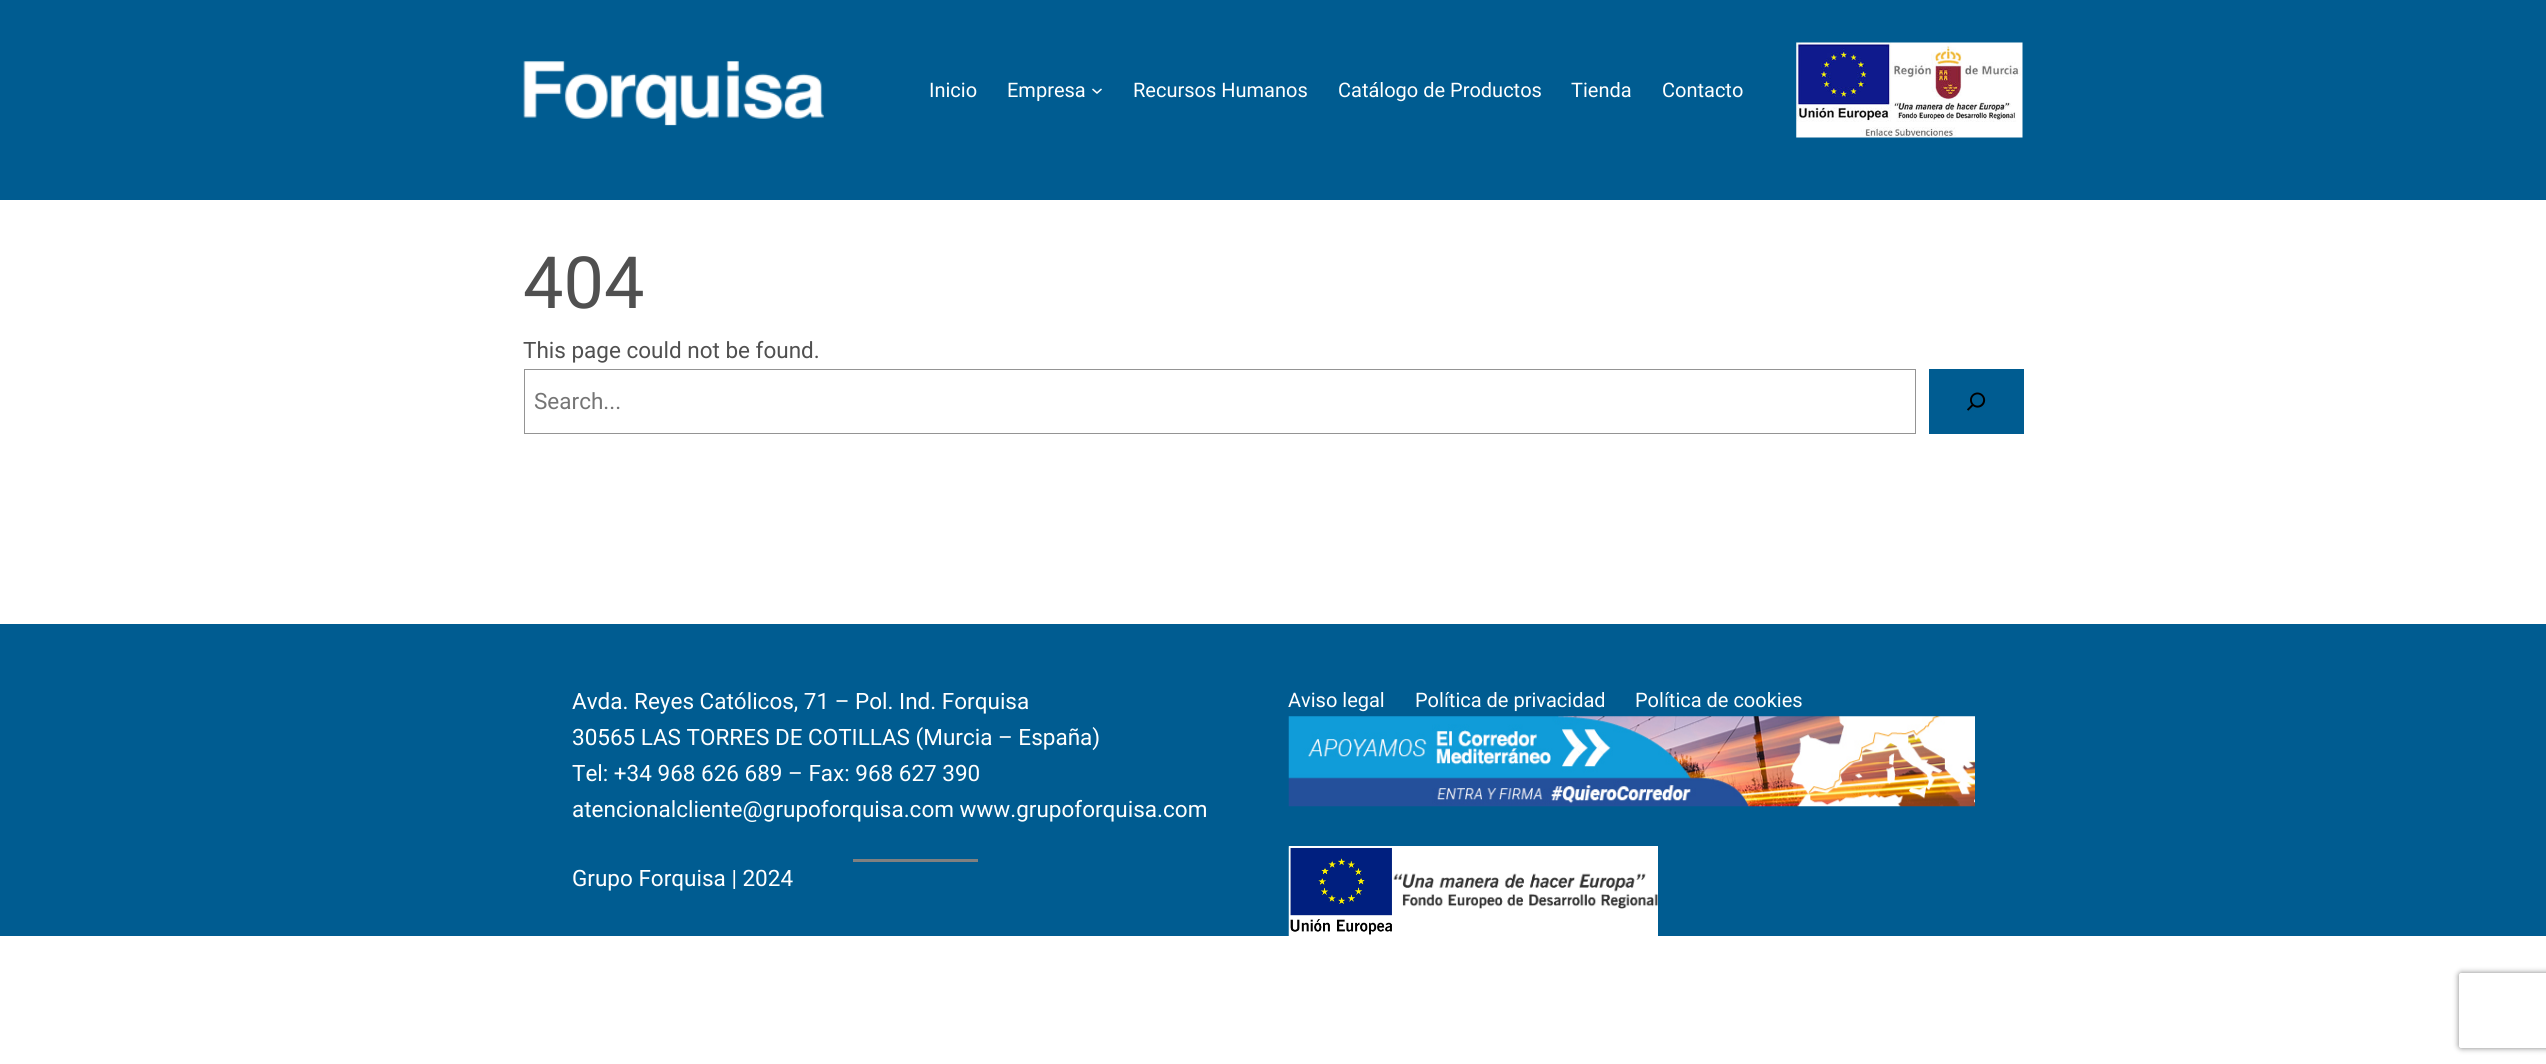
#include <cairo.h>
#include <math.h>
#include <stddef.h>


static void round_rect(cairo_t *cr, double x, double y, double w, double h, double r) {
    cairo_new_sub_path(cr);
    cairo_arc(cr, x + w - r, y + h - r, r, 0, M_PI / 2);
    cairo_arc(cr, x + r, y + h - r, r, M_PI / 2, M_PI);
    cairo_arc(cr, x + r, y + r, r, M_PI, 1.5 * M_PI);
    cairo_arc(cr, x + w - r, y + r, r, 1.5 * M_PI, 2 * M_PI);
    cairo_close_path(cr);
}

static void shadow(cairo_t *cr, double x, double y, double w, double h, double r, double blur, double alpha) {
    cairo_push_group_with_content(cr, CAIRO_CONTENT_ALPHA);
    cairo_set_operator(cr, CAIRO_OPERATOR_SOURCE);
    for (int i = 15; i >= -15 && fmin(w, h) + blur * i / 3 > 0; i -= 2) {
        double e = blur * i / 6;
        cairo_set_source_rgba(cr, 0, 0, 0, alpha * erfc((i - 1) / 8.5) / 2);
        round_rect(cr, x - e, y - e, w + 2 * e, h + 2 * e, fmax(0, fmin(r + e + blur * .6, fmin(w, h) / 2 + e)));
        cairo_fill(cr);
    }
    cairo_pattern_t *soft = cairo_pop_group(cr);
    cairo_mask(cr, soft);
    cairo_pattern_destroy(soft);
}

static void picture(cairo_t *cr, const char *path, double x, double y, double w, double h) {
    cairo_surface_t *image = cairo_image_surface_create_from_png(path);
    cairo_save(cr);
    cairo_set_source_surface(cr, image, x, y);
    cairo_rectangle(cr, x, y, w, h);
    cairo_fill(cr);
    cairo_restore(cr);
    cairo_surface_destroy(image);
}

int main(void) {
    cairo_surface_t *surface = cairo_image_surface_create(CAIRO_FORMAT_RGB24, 2546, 1064);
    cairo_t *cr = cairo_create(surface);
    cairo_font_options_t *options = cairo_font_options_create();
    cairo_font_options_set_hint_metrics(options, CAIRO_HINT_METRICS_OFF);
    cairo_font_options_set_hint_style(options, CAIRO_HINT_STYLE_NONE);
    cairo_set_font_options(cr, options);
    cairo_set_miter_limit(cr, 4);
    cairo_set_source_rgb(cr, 1, 1, 1);
    cairo_paint(cr);
    cairo_set_source_rgb(cr, 0, 0.361, 0.569);
    cairo_rectangle(cr, 0, 0, 2546, 200);
    cairo_fill(cr);
    picture(cr, "img1.png", 523, 61, 301, 65);
    cairo_select_font_face(cr, "Roboto", CAIRO_FONT_SLANT_NORMAL, CAIRO_FONT_WEIGHT_NORMAL);
    cairo_set_font_size(cr, 20);
    cairo_set_source_rgb(cr, 1, 1, 1);
    cairo_move_to(cr, 929, 97);
    cairo_show_text(cr, "Inicio");
    cairo_move_to(cr, 1007, 97);
    cairo_show_text(cr, "Empresa");
    cairo_new_path(cr);
    cairo_move_to(cr, 1092.5, 89);
    cairo_line_to(cr, 1097, 93);
    cairo_line_to(cr, 1101.5, 89);
    cairo_set_line_width(cr, 1.5);
    cairo_stroke(cr);
    cairo_move_to(cr, 1133, 97);
    cairo_show_text(cr, "Recursos Humanos");
    cairo_move_to(cr, 1338, 97);
    cairo_show_text(cr, "Catálogo de Productos");
    cairo_move_to(cr, 1571, 97);
    cairo_show_text(cr, "Tienda");
    cairo_move_to(cr, 1662, 97);
    cairo_show_text(cr, "Contacto");
    picture(cr, "img2.png", 1796, 42, 227, 96);
    cairo_set_font_size(cr, 72);
    cairo_set_source_rgb(cr, 0.314, 0.314, 0.314);
    cairo_move_to(cr, 523, 308);
    cairo_show_text(cr, "404");
    cairo_set_font_size(cr, 22.5);
    cairo_move_to(cr, 523, 358);
    cairo_show_text(cr, "This page could not be found.");
    cairo_rectangle(cr, 524.5, 369.5, 1391, 64);
    cairo_set_source_rgb(cr, 0.58, 0.58, 0.58);
    cairo_set_line_width(cr, 1);
    cairo_stroke(cr);
    cairo_set_source_rgb(cr, 0.459, 0.459, 0.459);
    cairo_move_to(cr, 534, 409);
    cairo_show_text(cr, "Search...");
    cairo_set_source_rgb(cr, 0, 0.361, 0.569);
    cairo_rectangle(cr, 1929, 369, 95, 65);
    cairo_fill(cr);
    picture(cr, "img3.png", 1967, 392, 19, 19);
    cairo_rectangle(cr, 0, 624, 2546, 312);
    cairo_fill(cr);
    cairo_set_source_rgb(cr, 1, 1, 1);
    cairo_move_to(cr, 572, 709);
    cairo_show_text(cr, "Avda. Reyes Católicos, 71 – Pol. Ind. Forquisa");
    cairo_move_to(cr, 572, 745);
    cairo_show_text(cr, "30565 LAS TORRES DE COTILLAS (Murcia – España)");
    cairo_move_to(cr, 572, 781);
    cairo_show_text(cr, "Tel: +34 968 626 689 – Fax: 968 627 390");
    cairo_move_to(cr, 572, 817);
    cairo_show_text(cr, "atencionalcliente@grupoforquisa.com www.grupoforquisa.com");
    cairo_set_source_rgb(cr, 0.502, 0.502, 0.502);
    cairo_rectangle(cr, 853, 859, 125, 3);
    cairo_fill(cr);
    cairo_set_source_rgb(cr, 1, 1, 1);
    cairo_move_to(cr, 572, 886);
    cairo_show_text(cr, "Grupo Forquisa | 2024");
    cairo_set_font_size(cr, 20);
    cairo_move_to(cr, 1288, 707);
    cairo_show_text(cr, "Aviso legal");
    cairo_move_to(cr, 1415, 707);
    cairo_show_text(cr, "Política de privacidad");
    cairo_move_to(cr, 1635, 707);
    cairo_show_text(cr, "Política de cookies");
    picture(cr, "img4.png", 1288, 716, 687, 91);
    cairo_rectangle(cr, 1289, 846, 369, 90);
    cairo_fill(cr);
    picture(cr, "img5.png", 1288, 846, 104, 90);
    picture(cr, "img6.png", 1393, 873, 265, 36);
    cairo_save(cr);
    cairo_set_fill_rule(cr, CAIRO_FILL_RULE_EVEN_ODD);
    cairo_new_path(cr);
    cairo_move_to(cr, 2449, 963);
    cairo_line_to(cr, 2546, 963);
    cairo_line_to(cr, 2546, 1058);
    cairo_line_to(cr, 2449, 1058);
    cairo_close_path(cr);
    cairo_move_to(cr, 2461.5, 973);
    cairo_line_to(cr, 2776.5, 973);
    cairo_curve_to(cr, 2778, 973, 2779, 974, 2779, 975.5);
    cairo_line_to(cr, 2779, 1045.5);
    cairo_curve_to(cr, 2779, 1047, 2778, 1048, 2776.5, 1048);
    cairo_line_to(cr, 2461.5, 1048);
    cairo_curve_to(cr, 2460, 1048, 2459, 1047, 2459, 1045.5);
    cairo_line_to(cr, 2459, 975.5);
    cairo_curve_to(cr, 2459, 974, 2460, 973, 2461.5, 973);
    cairo_close_path(cr);
    cairo_clip(cr);
    cairo_set_source_rgb(cr, 0.502, 0.502, 0.502);
    shadow(cr, 2459, 973, 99, 75, 2.5, 3, 1);
    cairo_restore(cr);
    cairo_surface_write_to_png(surface, "page.png");
    cairo_font_options_destroy(options);
    cairo_destroy(cr);
    cairo_surface_destroy(surface);
    return 0;
}
